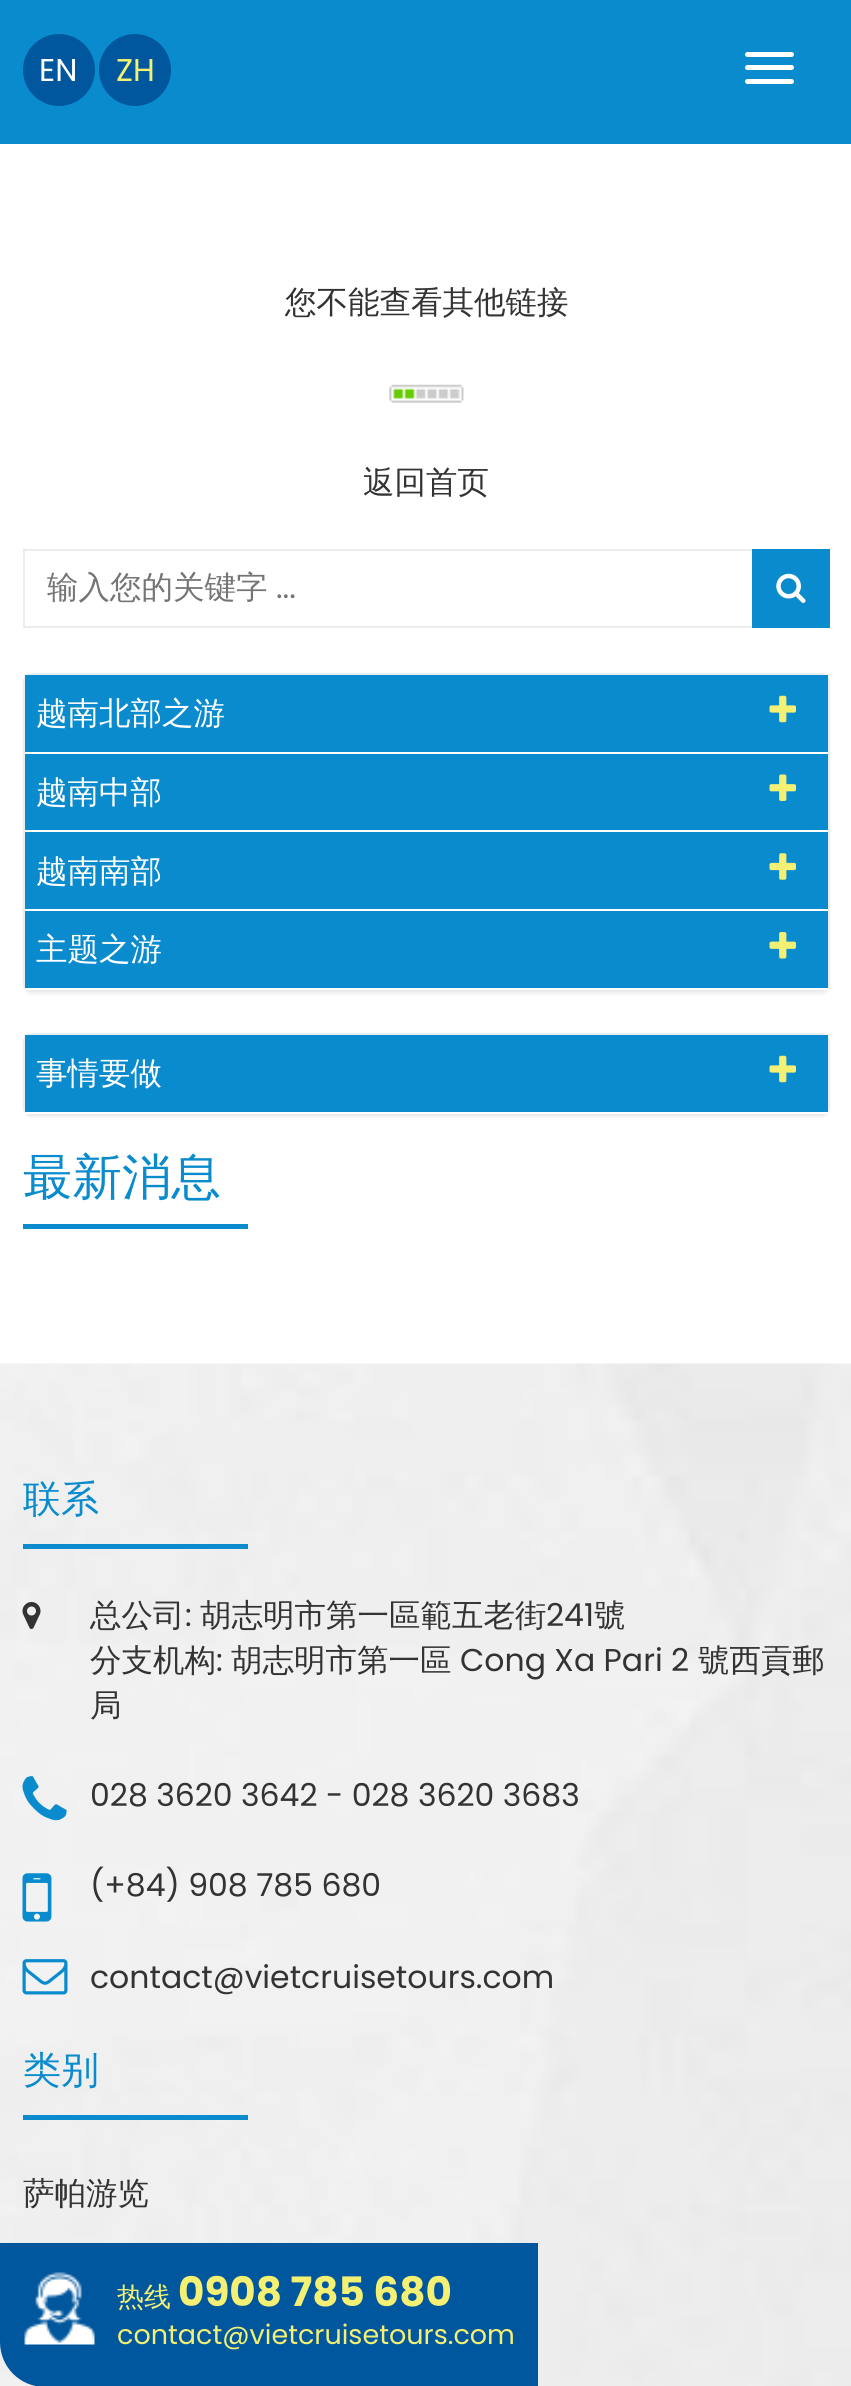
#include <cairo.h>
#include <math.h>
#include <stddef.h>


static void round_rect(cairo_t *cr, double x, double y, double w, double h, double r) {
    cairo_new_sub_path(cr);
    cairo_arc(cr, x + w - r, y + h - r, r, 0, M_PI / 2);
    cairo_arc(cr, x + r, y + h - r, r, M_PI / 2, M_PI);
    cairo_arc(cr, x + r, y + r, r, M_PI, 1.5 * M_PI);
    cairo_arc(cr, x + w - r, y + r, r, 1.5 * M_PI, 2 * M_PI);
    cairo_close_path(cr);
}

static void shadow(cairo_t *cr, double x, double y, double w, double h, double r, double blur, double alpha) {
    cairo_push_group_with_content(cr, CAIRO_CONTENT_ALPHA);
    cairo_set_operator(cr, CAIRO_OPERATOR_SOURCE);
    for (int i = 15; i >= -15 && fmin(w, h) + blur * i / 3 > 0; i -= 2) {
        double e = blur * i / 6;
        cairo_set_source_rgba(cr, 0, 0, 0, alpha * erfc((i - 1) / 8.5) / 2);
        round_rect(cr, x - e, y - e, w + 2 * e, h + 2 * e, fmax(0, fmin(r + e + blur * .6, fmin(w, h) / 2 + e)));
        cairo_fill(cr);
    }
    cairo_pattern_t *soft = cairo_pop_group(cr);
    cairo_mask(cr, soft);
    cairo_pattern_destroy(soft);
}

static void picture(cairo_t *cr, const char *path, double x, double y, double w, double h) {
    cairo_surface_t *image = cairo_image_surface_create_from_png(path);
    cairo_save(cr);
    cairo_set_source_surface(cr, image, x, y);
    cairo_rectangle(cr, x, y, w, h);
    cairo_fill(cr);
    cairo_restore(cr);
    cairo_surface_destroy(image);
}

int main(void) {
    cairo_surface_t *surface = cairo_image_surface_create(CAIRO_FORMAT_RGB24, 851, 2386);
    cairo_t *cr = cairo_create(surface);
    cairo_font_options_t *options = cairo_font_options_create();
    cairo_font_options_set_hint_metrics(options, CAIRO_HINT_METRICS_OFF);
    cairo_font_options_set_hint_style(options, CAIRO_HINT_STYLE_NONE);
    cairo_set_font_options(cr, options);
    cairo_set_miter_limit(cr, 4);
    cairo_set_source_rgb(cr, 1, 1, 1);
    cairo_paint(cr);
    cairo_set_source_rgb(cr, 0.039, 0.545, 0.804);
    cairo_rectangle(cr, 0, 0, 851, 144);
    cairo_fill(cr);
    cairo_set_source_rgb(cr, 0, 0.341, 0.616);
    cairo_arc(cr, 59, 70, 36, 0, 2 * M_PI);
    cairo_fill(cr);
    cairo_select_font_face(cr, "Poppins", CAIRO_FONT_SLANT_NORMAL, CAIRO_FONT_WEIGHT_NORMAL);
    cairo_set_font_size(cr, 31.5);
    cairo_set_source_rgb(cr, 1, 1, 1);
    cairo_move_to(cr, 39, 81);
    cairo_show_text(cr, "EN");
    cairo_set_source_rgb(cr, 0, 0.341, 0.616);
    cairo_new_path(cr);
    cairo_arc(cr, 135, 70, 36, 0, 2 * M_PI);
    cairo_fill(cr);
    cairo_set_source_rgb(cr, 0.957, 0.941, 0.455);
    cairo_move_to(cr, 116, 81);
    cairo_show_text(cr, "ZH");
    cairo_set_source_rgb(cr, 1, 1, 1);
    round_rect(cr, 745, 52, 49, 5, 2.5);
    cairo_fill(cr);
    round_rect(cr, 745, 65, 49, 5, 2.5);
    cairo_fill(cr);
    round_rect(cr, 745, 79, 49, 5, 2.5);
    cairo_fill(cr);
    cairo_select_font_face(cr, "WenQuanYi Zen Hei Medium", CAIRO_FONT_SLANT_NORMAL, CAIRO_FONT_WEIGHT_NORMAL);
    cairo_set_source_rgb(cr, 0.2, 0.2, 0.2);
    cairo_move_to(cr, 285, 313);
    cairo_show_text(cr, "您不能查看其他链接");
    picture(cr, "img1.png", 389, 384, 75, 19);
    cairo_move_to(cr, 363, 493);
    cairo_show_text(cr, "返回首页");
    cairo_rectangle(cr, 24, 550, 805, 77);
    cairo_set_source_rgb(cr, 0.922, 0.922, 0.922);
    cairo_stroke(cr);
    cairo_set_source_rgb(cr, 0.459, 0.459, 0.459);
    cairo_move_to(cr, 47, 598);
    cairo_show_text(cr, "输入您的关键字");
    cairo_select_font_face(cr, "Poppins", CAIRO_FONT_SLANT_NORMAL, CAIRO_FONT_WEIGHT_NORMAL);
    cairo_move_to(cr, 276, 598);
    cairo_show_text(cr, "...");
    cairo_set_source_rgb(cr, 0.039, 0.545, 0.804);
    cairo_rectangle(cr, 752, 549, 78, 79);
    cairo_fill(cr);
    picture(cr, "img2.png", 776, 573, 30, 30);
    cairo_set_source_rgb(cr, 0, 0, 0);
    shadow(cr, 23, 675, 807, 320, 9, 1, 0.05);
    round_rect(cr, 24, 674, 805, 317, 8);
    cairo_set_source_rgb(cr, 0.922, 0.922, 0.922);
    cairo_stroke(cr);
    cairo_set_source_rgb(cr, 0.039, 0.545, 0.804);
    cairo_rectangle(cr, 25, 675, 803, 77);
    cairo_fill(cr);
    cairo_set_source_rgb(cr, 1, 1, 1);
    cairo_rectangle(cr, 25, 752, 803, 2);
    cairo_fill(cr);
    cairo_select_font_face(cr, "WenQuanYi Zen Hei Medium", CAIRO_FONT_SLANT_NORMAL, CAIRO_FONT_WEIGHT_NORMAL);
    cairo_move_to(cr, 36, 724);
    cairo_show_text(cr, "越南北部之游");
    picture(cr, "img3.png", 769, 695, 27, 28);
    cairo_set_source_rgb(cr, 0.039, 0.545, 0.804);
    cairo_rectangle(cr, 25, 754, 803, 155);
    cairo_fill(cr);
    cairo_set_source_rgb(cr, 1, 1, 1);
    cairo_rectangle(cr, 25, 830, 803, 2);
    cairo_fill(cr);
    cairo_move_to(cr, 36, 803);
    cairo_show_text(cr, "越南中部");
    picture(cr, "img4.png", 769, 774, 27, 27);
    cairo_rectangle(cr, 25, 909, 803, 2);
    cairo_fill(cr);
    cairo_move_to(cr, 36, 882);
    cairo_show_text(cr, "越南南部");
    picture(cr, "img5.png", 769, 853, 27, 27);
    cairo_set_source_rgb(cr, 0.039, 0.545, 0.804);
    cairo_rectangle(cr, 25, 911, 803, 77);
    cairo_fill(cr);
    cairo_set_source_rgb(cr, 1, 1, 1);
    cairo_rectangle(cr, 25, 988, 803, 2);
    cairo_fill(cr);
    cairo_move_to(cr, 36, 960);
    cairo_show_text(cr, "主题之游");
    picture(cr, "img6.png", 769, 932, 27, 27);
    cairo_set_source_rgb(cr, 0, 0, 0);
    shadow(cr, 23, 1035, 807, 83, 9, 1, 0.05);
    round_rect(cr, 24, 1034, 805, 81, 8);
    cairo_set_source_rgb(cr, 0.922, 0.922, 0.922);
    cairo_stroke(cr);
    cairo_set_source_rgb(cr, 0.039, 0.545, 0.804);
    cairo_rectangle(cr, 25, 1035, 803, 77);
    cairo_fill(cr);
    cairo_set_source_rgb(cr, 1, 1, 1);
    cairo_rectangle(cr, 25, 1112, 803, 2);
    cairo_fill(cr);
    cairo_move_to(cr, 36, 1084);
    cairo_show_text(cr, "事情要做");
    picture(cr, "img3.png", 769, 1055, 27, 28);
    cairo_set_font_size(cr, 49.5);
    cairo_set_source_rgb(cr, 0.039, 0.545, 0.804);
    cairo_move_to(cr, 23, 1194);
    cairo_show_text(cr, "最新消息");
    cairo_rectangle(cr, 23, 1224, 225, 5);
    cairo_fill(cr);
    picture(cr, "img8.png", 0, 1363, 851, 1023);
    cairo_set_source_rgb(cr, 0, 0.341, 0.616);
    cairo_new_path(cr);
    cairo_move_to(cr, 0, 2243);
    cairo_line_to(cr, 538, 2243);
    cairo_line_to(cr, 538, 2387);
    cairo_line_to(cr, 45, 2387);
    cairo_curve_to(cr, 20, 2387, 0, 2367, 0, 2342);
    cairo_close_path(cr);
    cairo_fill(cr);
    picture(cr, "img7.png", 24, 2272, 71, 73);
    cairo_set_font_size(cr, 27);
    cairo_set_source_rgb(cr, 0.957, 0.941, 0.455);
    cairo_move_to(cr, 117, 2306);
    cairo_show_text(cr, "热线");
    cairo_select_font_face(cr, "Poppins", CAIRO_FONT_SLANT_NORMAL, CAIRO_FONT_WEIGHT_BOLD);
    cairo_set_font_size(cr, 40.5);
    cairo_move_to(cr, 178, 2306);
    cairo_show_text(cr, "0908 785 680");
    cairo_select_font_face(cr, "Poppins", CAIRO_FONT_SLANT_NORMAL, CAIRO_FONT_WEIGHT_NORMAL);
    cairo_set_font_size(cr, 27);
    cairo_move_to(cr, 117, 2344);
    cairo_show_text(cr, "contact@vietcruisetours.com");
    cairo_select_font_face(cr, "WenQuanYi Zen Hei Medium", CAIRO_FONT_SLANT_NORMAL, CAIRO_FONT_WEIGHT_NORMAL);
    cairo_set_font_size(cr, 38);
    cairo_set_source_rgb(cr, 0.039, 0.545, 0.804);
    cairo_move_to(cr, 23, 1512);
    cairo_show_text(cr, "联系");
    cairo_rectangle(cr, 23, 1544, 225, 5);
    cairo_fill(cr);
    picture(cr, "img9.png", 22, 1602, 19, 27);
    cairo_set_font_size(cr, 31.5);
    cairo_set_source_rgb(cr, 0.2, 0.2, 0.2);
    cairo_move_to(cr, 90, 1626);
    cairo_show_text(cr, "总公司");
    cairo_select_font_face(cr, "Poppins", CAIRO_FONT_SLANT_NORMAL, CAIRO_FONT_WEIGHT_NORMAL);
    cairo_move_to(cr, 185, 1626);
    cairo_show_text(cr, ":");
    cairo_select_font_face(cr, "WenQuanYi Zen Hei Medium", CAIRO_FONT_SLANT_NORMAL, CAIRO_FONT_WEIGHT_NORMAL);
    cairo_move_to(cr, 200, 1626);
    cairo_show_text(cr, "胡志明市第一區範五老街");
    cairo_select_font_face(cr, "Poppins", CAIRO_FONT_SLANT_NORMAL, CAIRO_FONT_WEIGHT_NORMAL);
    cairo_move_to(cr, 546, 1626);
    cairo_show_text(cr, "241");
    cairo_select_font_face(cr, "WenQuanYi Zen Hei Medium", CAIRO_FONT_SLANT_NORMAL, CAIRO_FONT_WEIGHT_NORMAL);
    cairo_move_to(cr, 594, 1626);
    cairo_show_text(cr, "號");
    cairo_move_to(cr, 90, 1671);
    cairo_show_text(cr, "分支机构");
    cairo_select_font_face(cr, "Poppins", CAIRO_FONT_SLANT_NORMAL, CAIRO_FONT_WEIGHT_NORMAL);
    cairo_move_to(cr, 216, 1671);
    cairo_show_text(cr, ":");
    cairo_select_font_face(cr, "WenQuanYi Zen Hei Medium", CAIRO_FONT_SLANT_NORMAL, CAIRO_FONT_WEIGHT_NORMAL);
    cairo_move_to(cr, 231, 1671);
    cairo_show_text(cr, "胡志明市第一區");
    cairo_select_font_face(cr, "Poppins", CAIRO_FONT_SLANT_NORMAL, CAIRO_FONT_WEIGHT_NORMAL);
    cairo_move_to(cr, 460, 1671);
    cairo_show_text(cr, "Cong Xa Pari 2");
    cairo_select_font_face(cr, "WenQuanYi Zen Hei Medium", CAIRO_FONT_SLANT_NORMAL, CAIRO_FONT_WEIGHT_NORMAL);
    cairo_move_to(cr, 698, 1671);
    cairo_show_text(cr, "號西貢郵");
    cairo_move_to(cr, 90, 1716);
    cairo_show_text(cr, "局");
    picture(cr, "img10.png", 22, 1776, 45, 45);
    cairo_select_font_face(cr, "Poppins", CAIRO_FONT_SLANT_NORMAL, CAIRO_FONT_WEIGHT_NORMAL);
    cairo_move_to(cr, 90, 1806);
    cairo_show_text(cr, "028 3620 3642 - 028 3620 3683");
    picture(cr, "img11.png", 22, 1873, 30, 49);
    cairo_move_to(cr, 90, 1896);
    cairo_show_text(cr, "(+84) 908 785 680");
    picture(cr, "img12.png", 22, 1959, 46, 36);
    cairo_move_to(cr, 90, 1988);
    cairo_show_text(cr, "contact@vietcruisetours.com");
    cairo_select_font_face(cr, "WenQuanYi Zen Hei Medium", CAIRO_FONT_SLANT_NORMAL, CAIRO_FONT_WEIGHT_NORMAL);
    cairo_set_font_size(cr, 38);
    cairo_set_source_rgb(cr, 0.039, 0.545, 0.804);
    cairo_move_to(cr, 23, 2083);
    cairo_show_text(cr, "类别");
    cairo_rectangle(cr, 23, 2115, 225, 5);
    cairo_fill(cr);
    cairo_set_font_size(cr, 31.5);
    cairo_set_source_rgb(cr, 0.2, 0.2, 0.2);
    cairo_move_to(cr, 23, 2204);
    cairo_show_text(cr, "萨帕游览");
    cairo_surface_write_to_png(surface, "page.png");
    cairo_font_options_destroy(options);
    cairo_destroy(cr);
    cairo_surface_destroy(surface);
    return 0;
}
